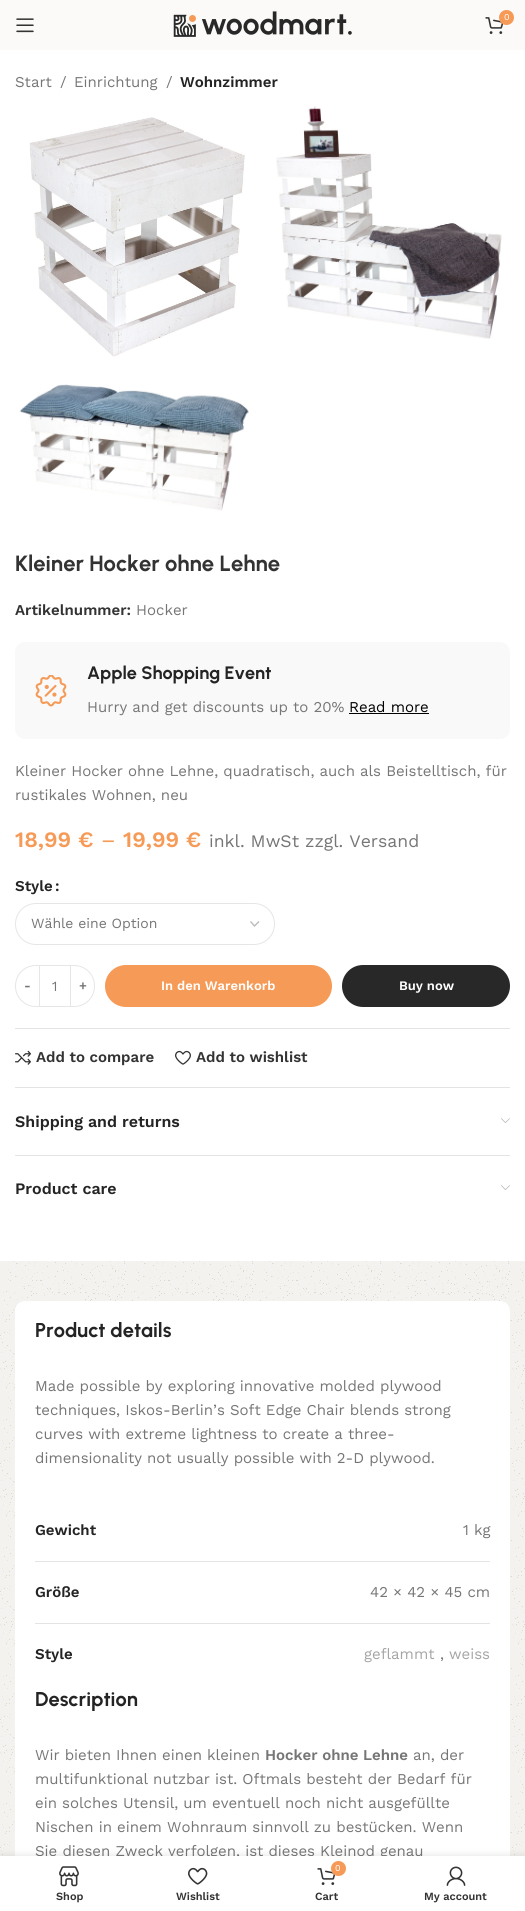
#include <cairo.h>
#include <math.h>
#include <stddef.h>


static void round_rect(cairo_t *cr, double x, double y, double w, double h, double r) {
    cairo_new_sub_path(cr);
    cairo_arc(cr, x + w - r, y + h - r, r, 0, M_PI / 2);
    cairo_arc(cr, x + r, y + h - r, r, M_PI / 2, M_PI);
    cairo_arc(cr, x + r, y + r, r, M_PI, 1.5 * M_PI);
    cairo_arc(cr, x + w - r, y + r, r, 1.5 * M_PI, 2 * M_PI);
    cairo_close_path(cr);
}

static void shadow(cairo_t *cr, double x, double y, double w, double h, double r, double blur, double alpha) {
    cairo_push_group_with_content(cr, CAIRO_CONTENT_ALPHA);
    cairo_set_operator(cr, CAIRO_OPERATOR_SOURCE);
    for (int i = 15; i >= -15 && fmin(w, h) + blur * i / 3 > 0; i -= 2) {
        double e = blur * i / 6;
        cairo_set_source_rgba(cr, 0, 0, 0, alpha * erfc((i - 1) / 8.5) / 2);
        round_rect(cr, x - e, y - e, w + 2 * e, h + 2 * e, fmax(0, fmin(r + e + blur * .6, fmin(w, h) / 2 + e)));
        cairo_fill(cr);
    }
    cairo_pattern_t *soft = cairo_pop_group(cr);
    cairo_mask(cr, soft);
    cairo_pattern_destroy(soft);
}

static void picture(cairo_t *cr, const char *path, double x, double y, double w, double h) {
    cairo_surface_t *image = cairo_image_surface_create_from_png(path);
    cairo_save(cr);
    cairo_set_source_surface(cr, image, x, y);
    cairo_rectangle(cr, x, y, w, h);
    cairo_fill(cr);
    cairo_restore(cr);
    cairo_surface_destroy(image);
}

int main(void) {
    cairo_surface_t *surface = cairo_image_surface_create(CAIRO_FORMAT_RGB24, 525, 1911);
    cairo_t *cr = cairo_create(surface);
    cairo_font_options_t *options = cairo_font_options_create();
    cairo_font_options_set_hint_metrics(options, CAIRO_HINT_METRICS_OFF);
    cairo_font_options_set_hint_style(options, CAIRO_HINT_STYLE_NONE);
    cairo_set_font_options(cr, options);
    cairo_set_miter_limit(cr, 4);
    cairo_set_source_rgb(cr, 1, 1, 1);
    cairo_paint(cr);
    cairo_set_source_rgb(cr, 0.984, 0.98, 0.969);
    cairo_rectangle(cr, 0, 0, 525, 50);
    cairo_fill(cr);
    picture(cr, "img1.png", 16, 18, 18, 15);
    picture(cr, "img2.png", 173, 11, 179, 26);
    picture(cr, "img3.png", 485, 17, 19, 17);
    cairo_set_source_rgb(cr, 0.961, 0.604, 0.341);
    cairo_arc(cr, 506.5, 17.5, 7.5, 0, 2 * M_PI);
    cairo_fill(cr);
    cairo_select_font_face(cr, "Work Sans", CAIRO_FONT_SLANT_NORMAL, CAIRO_FONT_WEIGHT_NORMAL);
    cairo_set_font_size(cr, 9);
    cairo_set_source_rgb(cr, 1, 1, 1);
    cairo_move_to(cr, 504, 20);
    cairo_show_text(cr, "0");
    picture(cr, "img4.png", 0, 1261, 525, 595);
    cairo_set_font_size(cr, 15);
    cairo_set_source_rgb(cr, 0.463, 0.463, 0.463);
    cairo_move_to(cr, 15, 87);
    cairo_show_text(cr, "Start");
    cairo_move_to(cr, 60, 87);
    cairo_show_text(cr, "/");
    cairo_move_to(cr, 74, 87);
    cairo_show_text(cr, "Einrichtung");
    cairo_move_to(cr, 166, 87);
    cairo_show_text(cr, "/");
    cairo_select_font_face(cr, "Work Sans SemiBold", CAIRO_FONT_SLANT_NORMAL, CAIRO_FONT_WEIGHT_NORMAL);
    cairo_set_source_rgb(cr, 0.141, 0.141, 0.141);
    cairo_move_to(cr, 180, 87);
    cairo_show_text(cr, "Wohnzimmer");
    picture(cr, "img5.png", 29, 117, 216, 240);
    picture(cr, "img6.png", 276, 106, 226, 233);
    picture(cr, "img7.png", 19, 384, 230, 127);
    cairo_select_font_face(cr, "Urbanist", CAIRO_FONT_SLANT_NORMAL, CAIRO_FONT_WEIGHT_BOLD);
    cairo_set_font_size(cr, 22);
    cairo_set_source_rgb(cr, 0.2, 0.2, 0.2);
    cairo_move_to(cr, 15, 571);
    cairo_show_text(cr, "Kleiner Hocker ohne Lehne");
    cairo_select_font_face(cr, "Work Sans SemiBold", CAIRO_FONT_SLANT_NORMAL, CAIRO_FONT_WEIGHT_NORMAL);
    cairo_set_font_size(cr, 15);
    cairo_move_to(cr, 15, 615);
    cairo_show_text(cr, "Artikelnummer:");
    cairo_select_font_face(cr, "Work Sans", CAIRO_FONT_SLANT_NORMAL, CAIRO_FONT_WEIGHT_NORMAL);
    cairo_set_source_rgb(cr, 0.463, 0.463, 0.463);
    cairo_move_to(cr, 136, 615);
    cairo_show_text(cr, "Hocker");
    cairo_set_source_rgb(cr, 0.973, 0.973, 0.973);
    round_rect(cr, 15, 642, 495, 97, 10);
    cairo_fill(cr);
    picture(cr, "img8.png", 35, 675, 32, 32);
    cairo_select_font_face(cr, "Urbanist", CAIRO_FONT_SLANT_NORMAL, CAIRO_FONT_WEIGHT_BOLD);
    cairo_set_font_size(cr, 18);
    cairo_set_source_rgb(cr, 0.141, 0.141, 0.141);
    cairo_move_to(cr, 87, 679);
    cairo_show_text(cr, "Apple Shopping Event");
    cairo_select_font_face(cr, "Work Sans", CAIRO_FONT_SLANT_NORMAL, CAIRO_FONT_WEIGHT_NORMAL);
    cairo_set_font_size(cr, 15);
    cairo_set_source_rgb(cr, 0.463, 0.463, 0.463);
    cairo_move_to(cr, 87, 712);
    cairo_show_text(cr, "Hurry and get discounts up to 20%");
    cairo_set_source_rgb(cr, 0, 0, 0);
    cairo_move_to(cr, 349, 712);
    cairo_show_text(cr, "Read more");
    cairo_rectangle(cr, 349, 713, 80, 1);
    cairo_fill(cr);
    cairo_set_source_rgb(cr, 0.463, 0.463, 0.463);
    cairo_move_to(cr, 15, 776);
    cairo_show_text(cr, "Kleiner Hocker ohne Lehne, quadratisch, auch als Beistelltisch, für");
    cairo_move_to(cr, 15, 800);
    cairo_show_text(cr, "rustikales Wohnen, neu");
    cairo_select_font_face(cr, "Work Sans SemiBold", CAIRO_FONT_SLANT_NORMAL, CAIRO_FONT_WEIGHT_NORMAL);
    cairo_set_font_size(cr, 22);
    cairo_set_source_rgb(cr, 0.961, 0.604, 0.341);
    cairo_move_to(cr, 15, 847);
    cairo_show_text(cr, "18,99 €");
    cairo_select_font_face(cr, "Work Sans", CAIRO_FONT_SLANT_NORMAL, CAIRO_FONT_WEIGHT_NORMAL);
    cairo_move_to(cr, 101, 847);
    cairo_show_text(cr, "–");
    cairo_select_font_face(cr, "Work Sans SemiBold", CAIRO_FONT_SLANT_NORMAL, CAIRO_FONT_WEIGHT_NORMAL);
    cairo_move_to(cr, 123, 847);
    cairo_show_text(cr, "19,99 €");
    cairo_select_font_face(cr, "Work Sans", CAIRO_FONT_SLANT_NORMAL, CAIRO_FONT_WEIGHT_NORMAL);
    cairo_set_font_size(cr, 17.6);
    cairo_set_source_rgb(cr, 0.463, 0.463, 0.463);
    cairo_move_to(cr, 209, 847);
    cairo_show_text(cr, "inkl. MwSt zzgl. Versand");
    cairo_select_font_face(cr, "Work Sans SemiBold", CAIRO_FONT_SLANT_NORMAL, CAIRO_FONT_WEIGHT_NORMAL);
    cairo_set_font_size(cr, 15);
    cairo_set_source_rgb(cr, 0.141, 0.141, 0.141);
    cairo_move_to(cr, 15, 891);
    cairo_show_text(cr, "Style");
    cairo_move_to(cr, 55, 891);
    cairo_show_text(cr, ":");
    cairo_new_path(cr);
    cairo_move_to(cr, 250.5, 921.5);
    cairo_line_to(cr, 254.5, 926);
    cairo_line_to(cr, 259, 921.5);
    cairo_set_source_rgb(cr, 0.733, 0.733, 0.733);
    cairo_set_line_width(cr, 1.4);
    cairo_stroke(cr);
    round_rect(cr, 15.5, 903.5, 259, 41, 20.5);
    cairo_set_source_rgb(cr, 0.902, 0.902, 0.902);
    cairo_set_line_width(cr, 1);
    cairo_stroke(cr);
    cairo_select_font_face(cr, "Work Sans", CAIRO_FONT_SLANT_NORMAL, CAIRO_FONT_WEIGHT_NORMAL);
    cairo_set_font_size(cr, 14);
    cairo_set_source_rgb(cr, 0.463, 0.463, 0.463);
    cairo_move_to(cr, 31, 928);
    cairo_show_text(cr, "Wähle eine Option");
    cairo_new_path(cr);
    cairo_move_to(cr, 36, 965.5);
    cairo_line_to(cr, 39.5, 965.5);
    cairo_line_to(cr, 39.5, 1006.5);
    cairo_line_to(cr, 36, 1006.5);
    cairo_curve_to(cr, 24.5, 1006.5, 15.5, 997.5, 15.5, 986);
    cairo_curve_to(cr, 15.5, 974.5, 24.5, 965.5, 36, 965.5);
    cairo_close_path(cr);
    cairo_set_source_rgb(cr, 0.902, 0.902, 0.902);
    cairo_stroke(cr);
    cairo_select_font_face(cr, "Work Sans SemiBold", CAIRO_FONT_SLANT_NORMAL, CAIRO_FONT_WEIGHT_NORMAL);
    cairo_set_font_size(cr, 13);
    cairo_set_source_rgb(cr, 0.463, 0.463, 0.463);
    cairo_move_to(cr, 24, 990);
    cairo_show_text(cr, "-");
    cairo_set_source_rgb(cr, 0.902, 0.902, 0.902);
    cairo_rectangle(cr, 40, 965, 30, 1);
    cairo_fill(cr);
    cairo_rectangle(cr, 40, 1006, 30, 1);
    cairo_fill(cr);
    cairo_select_font_face(cr, "Work Sans", CAIRO_FONT_SLANT_NORMAL, CAIRO_FONT_WEIGHT_NORMAL);
    cairo_set_font_size(cr, 14);
    cairo_set_source_rgb(cr, 0.463, 0.463, 0.463);
    cairo_move_to(cr, 52, 991);
    cairo_show_text(cr, "1");
    cairo_new_path(cr);
    cairo_move_to(cr, 70.5, 965.5);
    cairo_line_to(cr, 74, 965.5);
    cairo_curve_to(cr, 85.5, 965.5, 94.5, 974.5, 94.5, 986);
    cairo_curve_to(cr, 94.5, 997.5, 85.5, 1006.5, 74, 1006.5);
    cairo_line_to(cr, 70.5, 1006.5);
    cairo_close_path(cr);
    cairo_set_source_rgb(cr, 0.902, 0.902, 0.902);
    cairo_stroke(cr);
    cairo_select_font_face(cr, "Work Sans SemiBold", CAIRO_FONT_SLANT_NORMAL, CAIRO_FONT_WEIGHT_NORMAL);
    cairo_set_font_size(cr, 13);
    cairo_set_source_rgb(cr, 0.463, 0.463, 0.463);
    cairo_move_to(cr, 79, 990);
    cairo_show_text(cr, "+");
    cairo_set_source_rgb(cr, 0.961, 0.604, 0.341);
    round_rect(cr, 105, 965, 227, 42, 21);
    cairo_fill(cr);
    cairo_set_source_rgb(cr, 1, 1, 1);
    cairo_move_to(cr, 161, 990);
    cairo_show_text(cr, "In den Warenkorb");
    cairo_set_source_rgb(cr, 0.157, 0.157, 0.157);
    round_rect(cr, 342, 965, 168, 42, 21);
    cairo_fill(cr);
    cairo_set_source_rgb(cr, 1, 1, 1);
    cairo_move_to(cr, 399, 990);
    cairo_show_text(cr, "Buy now");
    cairo_set_source_rgb(cr, 0.89, 0.89, 0.89);
    cairo_rectangle(cr, 15, 1028, 495, 1);
    cairo_fill(cr);
    picture(cr, "img9.png", 15, 1050, 16, 15);
    cairo_set_font_size(cr, 15);
    cairo_set_source_rgb(cr, 0.2, 0.2, 0.2);
    cairo_move_to(cr, 36, 1062);
    cairo_show_text(cr, "Add to compare");
    picture(cr, "img10.png", 175, 1050, 16, 15);
    cairo_move_to(cr, 196, 1062);
    cairo_show_text(cr, "Add to wishlist");
    cairo_set_source_rgb(cr, 0.89, 0.89, 0.89);
    cairo_rectangle(cr, 15, 1087, 495, 1);
    cairo_fill(cr);
    cairo_set_source_rgb(cr, 0.894, 0.894, 0.894);
    cairo_rectangle(cr, 15, 1155, 495, 1);
    cairo_fill(cr);
    cairo_set_font_size(cr, 16);
    cairo_set_source_rgb(cr, 0.141, 0.141, 0.141);
    cairo_move_to(cr, 15, 1127);
    cairo_show_text(cr, "Shipping and returns");
    picture(cr, "img11.png", 501, 1118, 9, 5);
    cairo_move_to(cr, 15, 1194);
    cairo_show_text(cr, "Product care");
    picture(cr, "img11.png", 501, 1185, 9, 5);
    cairo_set_source_rgb(cr, 1, 1, 1);
    round_rect(cr, 15, 1301, 495, 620, 10);
    cairo_fill(cr);
    cairo_select_font_face(cr, "Urbanist", CAIRO_FONT_SLANT_NORMAL, CAIRO_FONT_WEIGHT_BOLD);
    cairo_set_font_size(cr, 20);
    cairo_set_source_rgb(cr, 0.141, 0.141, 0.141);
    cairo_move_to(cr, 35, 1337);
    cairo_show_text(cr, "Product details");
    cairo_select_font_face(cr, "Work Sans", CAIRO_FONT_SLANT_NORMAL, CAIRO_FONT_WEIGHT_NORMAL);
    cairo_set_font_size(cr, 15);
    cairo_set_source_rgb(cr, 0.463, 0.463, 0.463);
    cairo_move_to(cr, 35, 1391);
    cairo_show_text(cr, "Made possible by exploring innovative molded plywood");
    cairo_move_to(cr, 35, 1415);
    cairo_show_text(cr, "techniques, Iskos-Berlin’s Soft Edge Chair blends strong");
    cairo_move_to(cr, 35, 1439);
    cairo_show_text(cr, "curves with extreme lightness to create a three-");
    cairo_move_to(cr, 35, 1463);
    cairo_show_text(cr, "dimensionality not usually possible with 2-D plywood.");
    cairo_set_source_rgb(cr, 0.894, 0.894, 0.894);
    cairo_rectangle(cr, 35, 1561, 455, 1);
    cairo_fill(cr);
    cairo_select_font_face(cr, "Work Sans SemiBold", CAIRO_FONT_SLANT_NORMAL, CAIRO_FONT_WEIGHT_NORMAL);
    cairo_set_source_rgb(cr, 0.141, 0.141, 0.141);
    cairo_move_to(cr, 35, 1535);
    cairo_show_text(cr, "Gewicht");
    cairo_select_font_face(cr, "Work Sans", CAIRO_FONT_SLANT_NORMAL, CAIRO_FONT_WEIGHT_NORMAL);
    cairo_set_source_rgb(cr, 0.463, 0.463, 0.463);
    cairo_move_to(cr, 463, 1535);
    cairo_show_text(cr, "1 kg");
    cairo_set_source_rgb(cr, 0.894, 0.894, 0.894);
    cairo_rectangle(cr, 35, 1623, 455, 1);
    cairo_fill(cr);
    cairo_select_font_face(cr, "Work Sans SemiBold", CAIRO_FONT_SLANT_NORMAL, CAIRO_FONT_WEIGHT_NORMAL);
    cairo_set_source_rgb(cr, 0.141, 0.141, 0.141);
    cairo_move_to(cr, 35, 1597);
    cairo_show_text(cr, "Größe");
    cairo_select_font_face(cr, "Work Sans", CAIRO_FONT_SLANT_NORMAL, CAIRO_FONT_WEIGHT_NORMAL);
    cairo_set_source_rgb(cr, 0.463, 0.463, 0.463);
    cairo_move_to(cr, 370, 1597);
    cairo_show_text(cr, "42 × 42 × 45 cm");
    cairo_select_font_face(cr, "Work Sans SemiBold", CAIRO_FONT_SLANT_NORMAL, CAIRO_FONT_WEIGHT_NORMAL);
    cairo_set_source_rgb(cr, 0.141, 0.141, 0.141);
    cairo_move_to(cr, 35, 1659);
    cairo_show_text(cr, "Style");
    cairo_select_font_face(cr, "Work Sans", CAIRO_FONT_SLANT_NORMAL, CAIRO_FONT_WEIGHT_NORMAL);
    cairo_set_source_rgb(cr, 0.647, 0.647, 0.647);
    cairo_move_to(cr, 364, 1659);
    cairo_show_text(cr, "geflammt");
    cairo_set_source_rgb(cr, 0.463, 0.463, 0.463);
    cairo_move_to(cr, 440, 1659);
    cairo_show_text(cr, ",");
    cairo_set_source_rgb(cr, 0.647, 0.647, 0.647);
    cairo_move_to(cr, 449, 1659);
    cairo_show_text(cr, "weiss");
    cairo_select_font_face(cr, "Urbanist", CAIRO_FONT_SLANT_NORMAL, CAIRO_FONT_WEIGHT_BOLD);
    cairo_set_font_size(cr, 20);
    cairo_set_source_rgb(cr, 0.141, 0.141, 0.141);
    cairo_move_to(cr, 35, 1706);
    cairo_show_text(cr, "Description");
    cairo_select_font_face(cr, "Work Sans", CAIRO_FONT_SLANT_NORMAL, CAIRO_FONT_WEIGHT_NORMAL);
    cairo_set_font_size(cr, 15);
    cairo_set_source_rgb(cr, 0.463, 0.463, 0.463);
    cairo_move_to(cr, 35, 1760);
    cairo_show_text(cr, "Wir bieten Ihnen einen kleinen");
    cairo_select_font_face(cr, "Work Sans SemiBold", CAIRO_FONT_SLANT_NORMAL, CAIRO_FONT_WEIGHT_NORMAL);
    cairo_move_to(cr, 265, 1760);
    cairo_show_text(cr, "Hocker ohne Lehne");
    cairo_select_font_face(cr, "Work Sans", CAIRO_FONT_SLANT_NORMAL, CAIRO_FONT_WEIGHT_NORMAL);
    cairo_move_to(cr, 413, 1760);
    cairo_show_text(cr, "an, der");
    cairo_move_to(cr, 35, 1784);
    cairo_show_text(cr, "multifunktional nutzbar ist. Oftmals besteht der Bedarf für");
    cairo_move_to(cr, 35, 1808);
    cairo_show_text(cr, "ein solches Utensil, um eventuell noch nicht ausgefüllte");
    cairo_move_to(cr, 35, 1832);
    cairo_show_text(cr, "Nischen in einem Wohnraum sinnvoll zu bestücken. Wenn");
    cairo_move_to(cr, 35, 1856);
    cairo_show_text(cr, "Sie diesen Zweck verfolgen, ist dieses Kleinod genau");
    cairo_set_source_rgb(cr, 0, 0, 0);
    shadow(cr, 0, 1856, 525, 55, 0, 4.5, 0.12);
    cairo_set_source_rgb(cr, 1, 1, 1);
    cairo_rectangle(cr, 0, 1856, 525, 55);
    cairo_fill(cr);
    picture(cr, "img12.png", 59, 1866, 20, 21);
    cairo_select_font_face(cr, "Work Sans SemiBold", CAIRO_FONT_SLANT_NORMAL, CAIRO_FONT_WEIGHT_NORMAL);
    cairo_set_font_size(cr, 11);
    cairo_set_source_rgb(cr, 0.2, 0.2, 0.2);
    cairo_move_to(cr, 56, 1900);
    cairo_show_text(cr, "Shop");
    picture(cr, "img13.png", 188, 1867, 20, 18);
    cairo_move_to(cr, 176, 1900);
    cairo_show_text(cr, "Wishlist");
    picture(cr, "img14.png", 317, 1868, 19, 17);
    cairo_set_source_rgb(cr, 0.961, 0.604, 0.341);
    cairo_arc(cr, 338.5, 1868.5, 7.5, 0, 2 * M_PI);
    cairo_fill(cr);
    cairo_select_font_face(cr, "Work Sans", CAIRO_FONT_SLANT_NORMAL, CAIRO_FONT_WEIGHT_NORMAL);
    cairo_set_font_size(cr, 9);
    cairo_set_source_rgb(cr, 1, 1, 1);
    cairo_move_to(cr, 335, 1871);
    cairo_show_text(cr, "0");
    cairo_select_font_face(cr, "Work Sans SemiBold", CAIRO_FONT_SLANT_NORMAL, CAIRO_FONT_WEIGHT_NORMAL);
    cairo_set_font_size(cr, 11);
    cairo_set_source_rgb(cr, 0.2, 0.2, 0.2);
    cairo_move_to(cr, 315, 1900);
    cairo_show_text(cr, "Cart");
    picture(cr, "img15.png", 446, 1866, 20, 20);
    cairo_move_to(cr, 424, 1900);
    cairo_show_text(cr, "My account");
    cairo_surface_write_to_png(surface, "page.png");
    cairo_font_options_destroy(options);
    cairo_destroy(cr);
    cairo_surface_destroy(surface);
    return 0;
}
